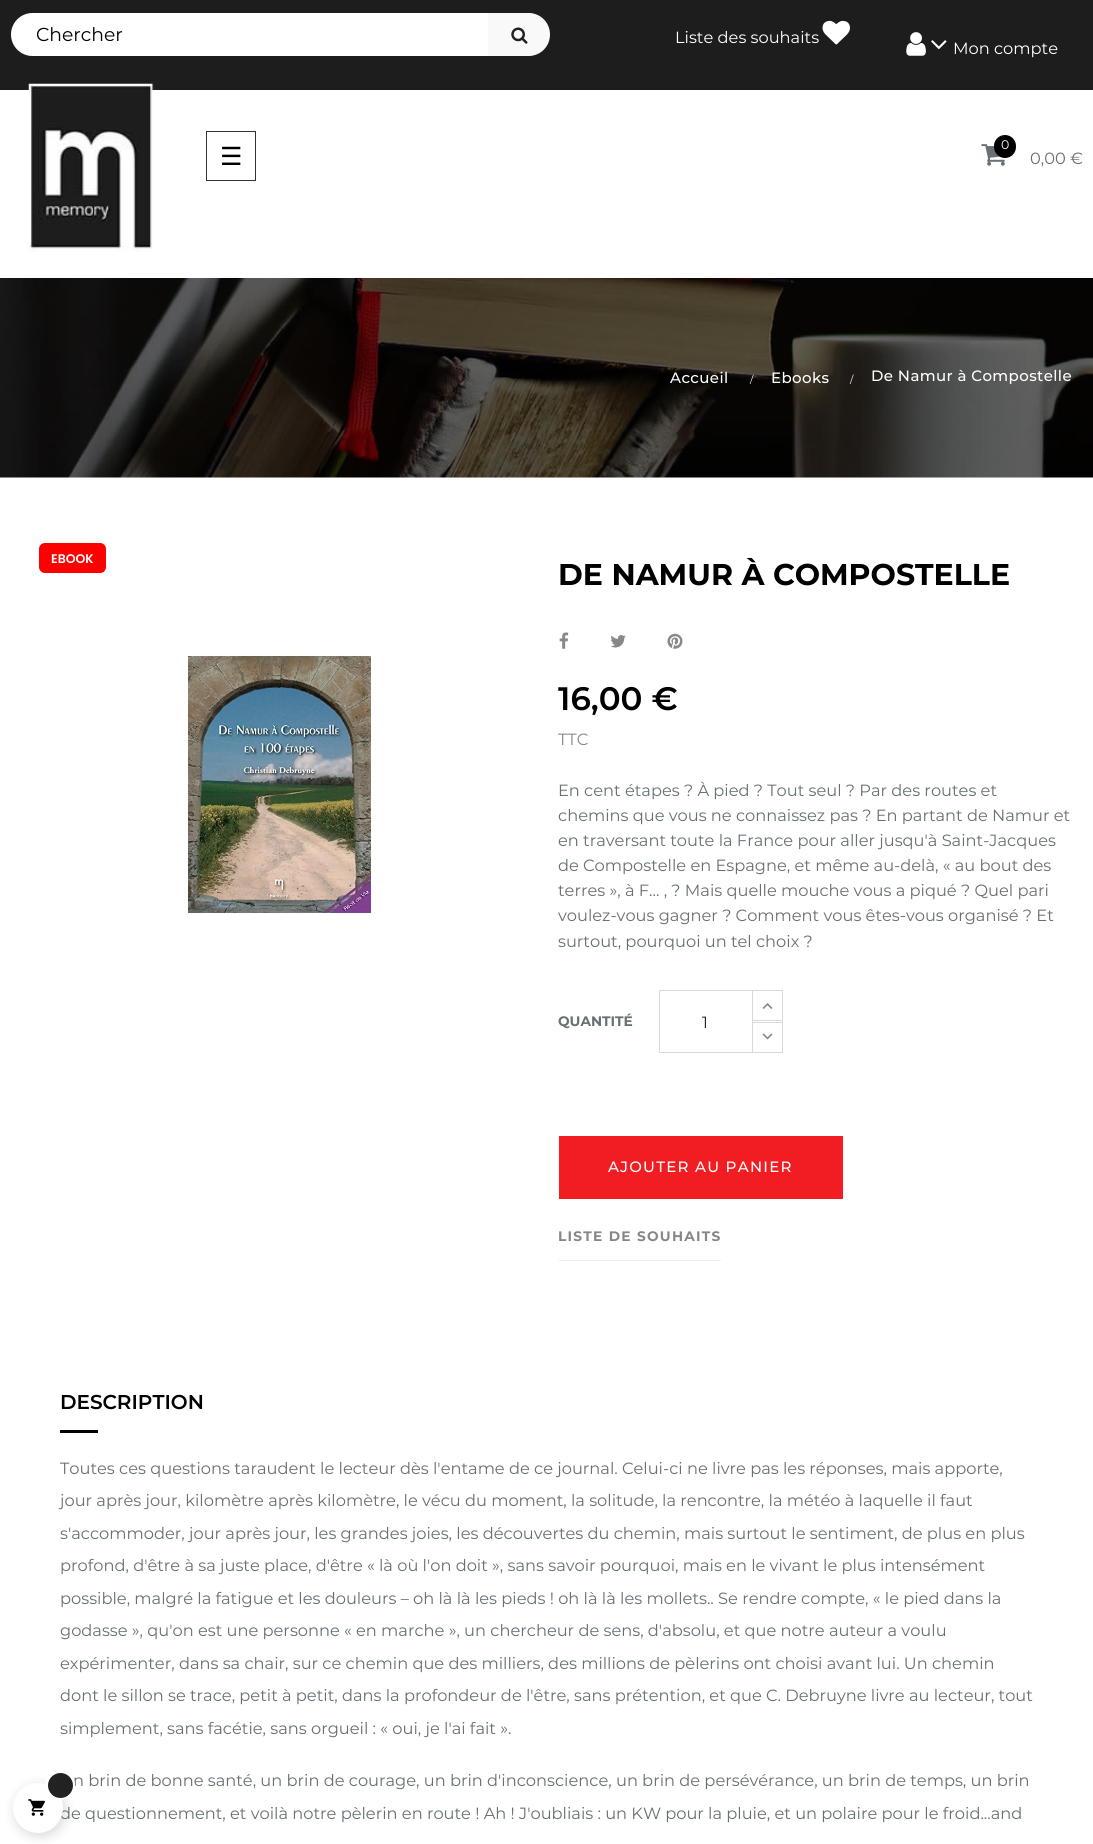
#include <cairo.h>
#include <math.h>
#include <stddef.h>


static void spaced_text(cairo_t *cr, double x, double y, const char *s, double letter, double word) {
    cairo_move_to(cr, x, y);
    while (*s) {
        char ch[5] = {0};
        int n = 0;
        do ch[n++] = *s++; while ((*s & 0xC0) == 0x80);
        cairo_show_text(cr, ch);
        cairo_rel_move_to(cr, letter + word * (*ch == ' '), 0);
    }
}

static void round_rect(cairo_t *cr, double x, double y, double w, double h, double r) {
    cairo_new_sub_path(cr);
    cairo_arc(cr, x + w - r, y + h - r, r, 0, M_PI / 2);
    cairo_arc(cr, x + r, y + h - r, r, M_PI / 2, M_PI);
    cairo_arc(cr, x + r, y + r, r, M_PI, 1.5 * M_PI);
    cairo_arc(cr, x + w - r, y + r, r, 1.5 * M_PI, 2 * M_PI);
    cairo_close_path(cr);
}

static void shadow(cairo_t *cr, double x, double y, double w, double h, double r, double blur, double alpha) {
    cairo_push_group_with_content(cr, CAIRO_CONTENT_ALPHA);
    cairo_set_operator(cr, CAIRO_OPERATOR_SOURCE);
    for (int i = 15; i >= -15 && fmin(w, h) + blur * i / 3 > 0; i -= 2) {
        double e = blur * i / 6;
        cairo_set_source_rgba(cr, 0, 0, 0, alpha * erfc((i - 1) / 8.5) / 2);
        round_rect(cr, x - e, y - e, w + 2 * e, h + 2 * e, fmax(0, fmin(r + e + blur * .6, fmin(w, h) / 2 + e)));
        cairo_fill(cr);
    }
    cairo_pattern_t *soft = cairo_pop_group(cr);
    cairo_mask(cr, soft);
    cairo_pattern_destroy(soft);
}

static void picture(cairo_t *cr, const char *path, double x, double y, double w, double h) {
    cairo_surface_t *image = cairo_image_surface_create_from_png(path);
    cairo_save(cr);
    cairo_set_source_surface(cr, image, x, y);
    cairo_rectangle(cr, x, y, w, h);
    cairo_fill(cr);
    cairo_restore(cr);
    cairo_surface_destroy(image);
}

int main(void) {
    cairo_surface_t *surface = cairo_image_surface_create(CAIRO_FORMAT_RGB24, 1093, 1844);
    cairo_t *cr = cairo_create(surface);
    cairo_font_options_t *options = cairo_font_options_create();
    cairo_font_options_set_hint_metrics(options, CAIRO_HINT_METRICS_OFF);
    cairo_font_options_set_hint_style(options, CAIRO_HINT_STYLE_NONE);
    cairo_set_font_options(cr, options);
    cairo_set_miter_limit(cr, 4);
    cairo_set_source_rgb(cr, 1, 1, 1);
    cairo_paint(cr);
    cairo_set_source_rgb(cr, 0.114, 0.114, 0.114);
    cairo_rectangle(cr, 0, 0, 1093, 90);
    cairo_fill(cr);
    cairo_set_source_rgb(cr, 1, 1, 1);
    round_rect(cr, 11, 13, 537, 43, 21.5);
    cairo_fill(cr);
    cairo_select_font_face(cr, "Montserrat", CAIRO_FONT_SLANT_NORMAL, CAIRO_FONT_WEIGHT_NORMAL);
    cairo_set_font_size(cr, 18.75);
    cairo_set_source_rgb(cr, 0, 0, 0);
    cairo_move_to(cr, 36, 41);
    cairo_show_text(cr, "Chercher");
    cairo_set_source_rgb(cr, 0.976, 0.976, 0.976);
    cairo_new_path(cr);
    cairo_move_to(cr, 488, 13);
    cairo_line_to(cr, 528.5, 13);
    cairo_curve_to(cr, 540.5, 13, 550, 22.5, 550, 34.5);
    cairo_curve_to(cr, 550, 46.5, 540.5, 56, 528.5, 56);
    cairo_line_to(cr, 488, 56);
    cairo_close_path(cr);
    cairo_fill(cr);
    picture(cr, "img1.png", 511, 27, 17, 17);
    cairo_set_font_size(cr, 16.25);
    cairo_set_source_rgb(cr, 1, 1, 1);
    cairo_move_to(cr, 675, 43);
    cairo_show_text(cr, "Liste des souhaits");
    picture(cr, "img2.png", 822, 20, 28, 25);
    picture(cr, "img3.png", 906, 32, 20, 24);
    picture(cr, "img4.png", 931, 40, 16, 10);
    cairo_move_to(cr, 953, 54);
    cairo_show_text(cr, "Mon compte");
    picture(cr, "img5.png", 28, 83, 126, 169);
    cairo_rectangle(cr, 206.5, 131.5, 49, 49);
    cairo_set_source_rgb(cr, 0.2, 0.2, 0.2);
    cairo_set_line_width(cr, 1);
    cairo_stroke(cr);
    cairo_select_font_face(cr, "DejaVu Sans", CAIRO_FONT_SLANT_NORMAL, CAIRO_FONT_WEIGHT_NORMAL);
    cairo_set_font_size(cr, 25);
    cairo_set_source_rgb(cr, 0, 0, 0);
    cairo_move_to(cr, 220, 165);
    cairo_show_text(cr, "☰");
    picture(cr, "img6.png", 981, 144, 24, 22);
    round_rect(cr, 994, 135, 22, 23, 11);
    cairo_fill(cr);
    cairo_select_font_face(cr, "Montserrat", CAIRO_FONT_SLANT_NORMAL, CAIRO_FONT_WEIGHT_NORMAL);
    cairo_set_font_size(cr, 12.5);
    cairo_set_source_rgb(cr, 1, 1, 1);
    cairo_move_to(cr, 1001, 149);
    cairo_show_text(cr, "0");
    cairo_set_font_size(cr, 16.25);
    cairo_set_source_rgb(cr, 0.404, 0.439, 0.455);
    cairo_move_to(cr, 1030, 164);
    cairo_show_text(cr, "0,00 €");
    picture(cr, "img7.png", 0, 278, 1093, 200);
    cairo_select_font_face(cr, "Montserrat Medium", CAIRO_FONT_SLANT_NORMAL, CAIRO_FONT_WEIGHT_NORMAL);
    cairo_set_font_size(cr, 15);
    cairo_set_source_rgb(cr, 1, 1, 1);
    spaced_text(cr, 670, 383, "Accueil", 0.4, 0);
    cairo_select_font_face(cr, "Montserrat", CAIRO_FONT_SLANT_NORMAL, CAIRO_FONT_WEIGHT_NORMAL);
    cairo_set_font_size(cr, 10);
    spaced_text(cr, 750, 383, "/", 0.4, 0);
    cairo_select_font_face(cr, "Montserrat Medium", CAIRO_FONT_SLANT_NORMAL, CAIRO_FONT_WEIGHT_NORMAL);
    cairo_set_font_size(cr, 15);
    spaced_text(cr, 771, 383, "Ebooks", 0.4, 0);
    cairo_select_font_face(cr, "Montserrat", CAIRO_FONT_SLANT_NORMAL, CAIRO_FONT_WEIGHT_NORMAL);
    cairo_set_font_size(cr, 10);
    spaced_text(cr, 850, 383, "/", 0.4, 0);
    cairo_select_font_face(cr, "Montserrat Medium", CAIRO_FONT_SLANT_NORMAL, CAIRO_FONT_WEIGHT_NORMAL);
    cairo_set_font_size(cr, 15);
    spaced_text(cr, 871, 381, "De Namur à Compostelle", 0.4, 0);
    cairo_set_source_rgb(cr, 1, 0, 0);
    round_rect(cr, 39, 543, 67, 30, 6);
    cairo_fill(cr);
    cairo_rectangle(cr, 103, 571, 1, 1);
    cairo_fill(cr);
    cairo_select_font_face(cr, "Poppins SemiBold", CAIRO_FONT_SLANT_NORMAL, CAIRO_FONT_WEIGHT_NORMAL);
    cairo_set_font_size(cr, 12.5);
    cairo_set_source_rgb(cr, 1, 1, 1);
    cairo_move_to(cr, 51, 563);
    cairo_show_text(cr, "EBOOK");
    picture(cr, "img8.png", 187, 652, 189, 262);
    cairo_select_font_face(cr, "Montserrat", CAIRO_FONT_SLANT_NORMAL, CAIRO_FONT_WEIGHT_BOLD);
    cairo_set_font_size(cr, 30);
    cairo_set_source_rgb(cr, 0, 0, 0);
    cairo_move_to(cr, 558, 585);
    cairo_show_text(cr, "DE NAMUR À COMPOSTELLE");
    picture(cr, "img9.png", 559, 632, 10, 17);
    picture(cr, "img10.png", 610, 635, 16, 13);
    picture(cr, "img11.png", 667, 633, 16, 16);
    cairo_select_font_face(cr, "Montserrat SemiBold", CAIRO_FONT_SLANT_NORMAL, CAIRO_FONT_WEIGHT_NORMAL);
    cairo_set_font_size(cr, 32.5);
    cairo_move_to(cr, 558, 710);
    cairo_show_text(cr, "16,00 €");
    cairo_select_font_face(cr, "Montserrat", CAIRO_FONT_SLANT_NORMAL, CAIRO_FONT_WEIGHT_NORMAL);
    cairo_set_font_size(cr, 16.25);
    cairo_set_source_rgb(cr, 0.529, 0.529, 0.529);
    cairo_move_to(cr, 558, 745);
    cairo_show_text(cr, "TTC");
    cairo_set_source_rgb(cr, 0.404, 0.439, 0.455);
    cairo_move_to(cr, 558, 796);
    cairo_show_text(cr, "En cent étapes ? À pied ? Tout seul ? Par des routes et");
    cairo_move_to(cr, 558, 821);
    cairo_show_text(cr, "chemins que vous ne connaissez pas ? En partant de Namur et");
    cairo_move_to(cr, 558, 846);
    cairo_show_text(cr, "en traversant toute la France pour aller jusqu'à Saint-Jacques");
    cairo_move_to(cr, 558, 871);
    cairo_show_text(cr, "de Compostelle en Espagne, et même au-delà, « au bout des");
    cairo_move_to(cr, 558, 896);
    cairo_show_text(cr, "terres », à F... , ? Mais quelle mouche vous a piqué ? Quel pari");
    cairo_move_to(cr, 558, 921);
    cairo_show_text(cr, "voulez-vous gagner ? Comment vous êtes-vous organisé ? Et");
    cairo_move_to(cr, 558, 947);
    cairo_show_text(cr, "surtout, pourquoi un tel choix ?");
    cairo_select_font_face(cr, "Montserrat", CAIRO_FONT_SLANT_NORMAL, CAIRO_FONT_WEIGHT_BOLD);
    cairo_set_font_size(cr, 13.75);
    cairo_move_to(cr, 558, 1026);
    cairo_show_text(cr, "QUANTITÉ");
    cairo_rectangle(cr, 751.5, 990.5, 31, 32);
    cairo_set_source_rgb(cr, 0.851, 0.851, 0.851);
    cairo_stroke(cr);
    cairo_rectangle(cr, 751.5, 1020.5, 31, 32);
    cairo_stroke(cr);
    cairo_set_source_rgb(cr, 1, 1, 1);
    cairo_rectangle(cr, 751, 991, 1, 61);
    cairo_fill(cr);
    cairo_rectangle(cr, 659.5, 990.5, 93, 62);
    cairo_set_source_rgb(cr, 0.851, 0.851, 0.851);
    cairo_stroke(cr);
    cairo_select_font_face(cr, "Montserrat", CAIRO_FONT_SLANT_NORMAL, CAIRO_FONT_WEIGHT_NORMAL);
    cairo_set_font_size(cr, 16.25);
    cairo_set_source_rgb(cr, 0.153, 0.153, 0.153);
    cairo_move_to(cr, 702, 1028);
    cairo_show_text(cr, "1");
    picture(cr, "img12.png", 762, 1003, 11, 6);
    picture(cr, "img13.png", 762, 1033, 11, 7);
    cairo_set_source_rgb(cr, 0.945, 0.114, 0.133);
    cairo_rectangle(cr, 559, 1136, 284, 63);
    cairo_fill(cr);
    cairo_select_font_face(cr, "Montserrat Medium", CAIRO_FONT_SLANT_NORMAL, CAIRO_FONT_WEIGHT_NORMAL);
    cairo_set_font_size(cr, 15);
    cairo_set_source_rgb(cr, 1, 1, 1);
    spaced_text(cr, 608, 1172, "AJOUTER AU PANIER", 1.25, 0);
    cairo_set_source_rgb(cr, 0.933, 0.933, 0.933);
    cairo_rectangle(cr, 559, 1260, 162, 1);
    cairo_fill(cr);
    cairo_select_font_face(cr, "Montserrat", CAIRO_FONT_SLANT_NORMAL, CAIRO_FONT_WEIGHT_BOLD);
    cairo_set_font_size(cr, 13.75);
    cairo_set_source_rgb(cr, 0.529, 0.529, 0.529);
    spaced_text(cr, 558, 1241, "LISTE DE SOUHAITS", 1.25, 0);
    cairo_select_font_face(cr, "Montserrat SemiBold", CAIRO_FONT_SLANT_NORMAL, CAIRO_FONT_WEIGHT_NORMAL);
    cairo_set_font_size(cr, 20);
    cairo_set_source_rgb(cr, 0, 0, 0);
    cairo_move_to(cr, 60, 1409);
    cairo_show_text(cr, "DESCRIPTION");
    cairo_rectangle(cr, 60, 1430, 38, 3);
    cairo_fill(cr);
    cairo_select_font_face(cr, "Montserrat", CAIRO_FONT_SLANT_NORMAL, CAIRO_FONT_WEIGHT_NORMAL);
    cairo_set_font_size(cr, 16.25);
    cairo_set_source_rgb(cr, 0.404, 0.439, 0.455);
    cairo_move_to(cr, 60, 1474);
    cairo_show_text(cr, "Toutes ces questions taraudent le lecteur dès l'entame de ce journal. Celui-ci ne livre pas les réponses, mais apporte,");
    cairo_move_to(cr, 60, 1506);
    cairo_show_text(cr, "jour après jour, kilomètre après kilomètre, le vécu du moment, la solitude, la rencontre, la météo à laquelle il faut");
    cairo_move_to(cr, 60, 1539);
    cairo_show_text(cr, "s'accommoder, jour après jour, les grandes joies, les découvertes du chemin, mais surtout le sentiment, de plus en plus");
    cairo_move_to(cr, 60, 1571);
    cairo_show_text(cr, "profond, d'être à sa juste place, d'être « là où l'on doit », sans savoir pourquoi, mais en le vivant le plus intensément");
    cairo_move_to(cr, 60, 1604);
    cairo_show_text(cr, "possible, malgré la fatigue et les douleurs – oh là là les pieds ! oh là là les mollets.. Se rendre compte, « le pied dans la");
    cairo_move_to(cr, 60, 1636);
    cairo_show_text(cr, "godasse », qu'on est une personne « en marche », un chercheur de sens, d'absolu, et que notre auteur a voulu");
    cairo_move_to(cr, 60, 1669);
    cairo_show_text(cr, "expérimenter, dans sa chair, sur ce chemin que des milliers, des millions de pèlerins ont choisi avant lui. Un chemin");
    cairo_move_to(cr, 60, 1701);
    cairo_show_text(cr, "dont le sillon se trace, petit à petit, dans la profondeur de l'être, sans prétention, et que C. Debruyne livre au lecteur, tout");
    cairo_move_to(cr, 60, 1734);
    cairo_show_text(cr, "simplement, sans facétie, sans orgueil : « oui, je l'ai fait ».");
    cairo_move_to(cr, 73, 1786);
    cairo_show_text(cr, "n brin de bonne santé, un brin de courage, un brin d'inconscience, un brin de persévérance, un brin de temps, un brin");
    cairo_move_to(cr, 60, 1819);
    cairo_show_text(cr, "de questionnement, et voilà notre pèlerin en route ! Ah ! J'oubliais : un KW pour la pluie, et un polaire pour le froid...and");
    cairo_set_source_rgb(cr, 0, 0, 0);
    shadow(cr, 15, 1786, 50, 50, 25, 6, 0.15);
    cairo_set_source_rgb(cr, 1, 1, 1);
    cairo_arc(cr, 38, 1808, 25, 0, 2 * M_PI);
    cairo_fill(cr);
    picture(cr, "img14.png", 28, 1799, 17, 17);
    cairo_arc(cr, 60, 1785, 13.5, 0, 2 * M_PI);
    cairo_set_line_width(cr, 3);
    cairo_stroke(cr);
    cairo_set_source_rgb(cr, 0.133, 0.133, 0.133);
    cairo_arc(cr, 60.5, 1785.5, 12.5, 0, 2 * M_PI);
    cairo_fill(cr);
    cairo_surface_write_to_png(surface, "page.png");
    cairo_font_options_destroy(options);
    cairo_destroy(cr);
    cairo_surface_destroy(surface);
    return 0;
}
